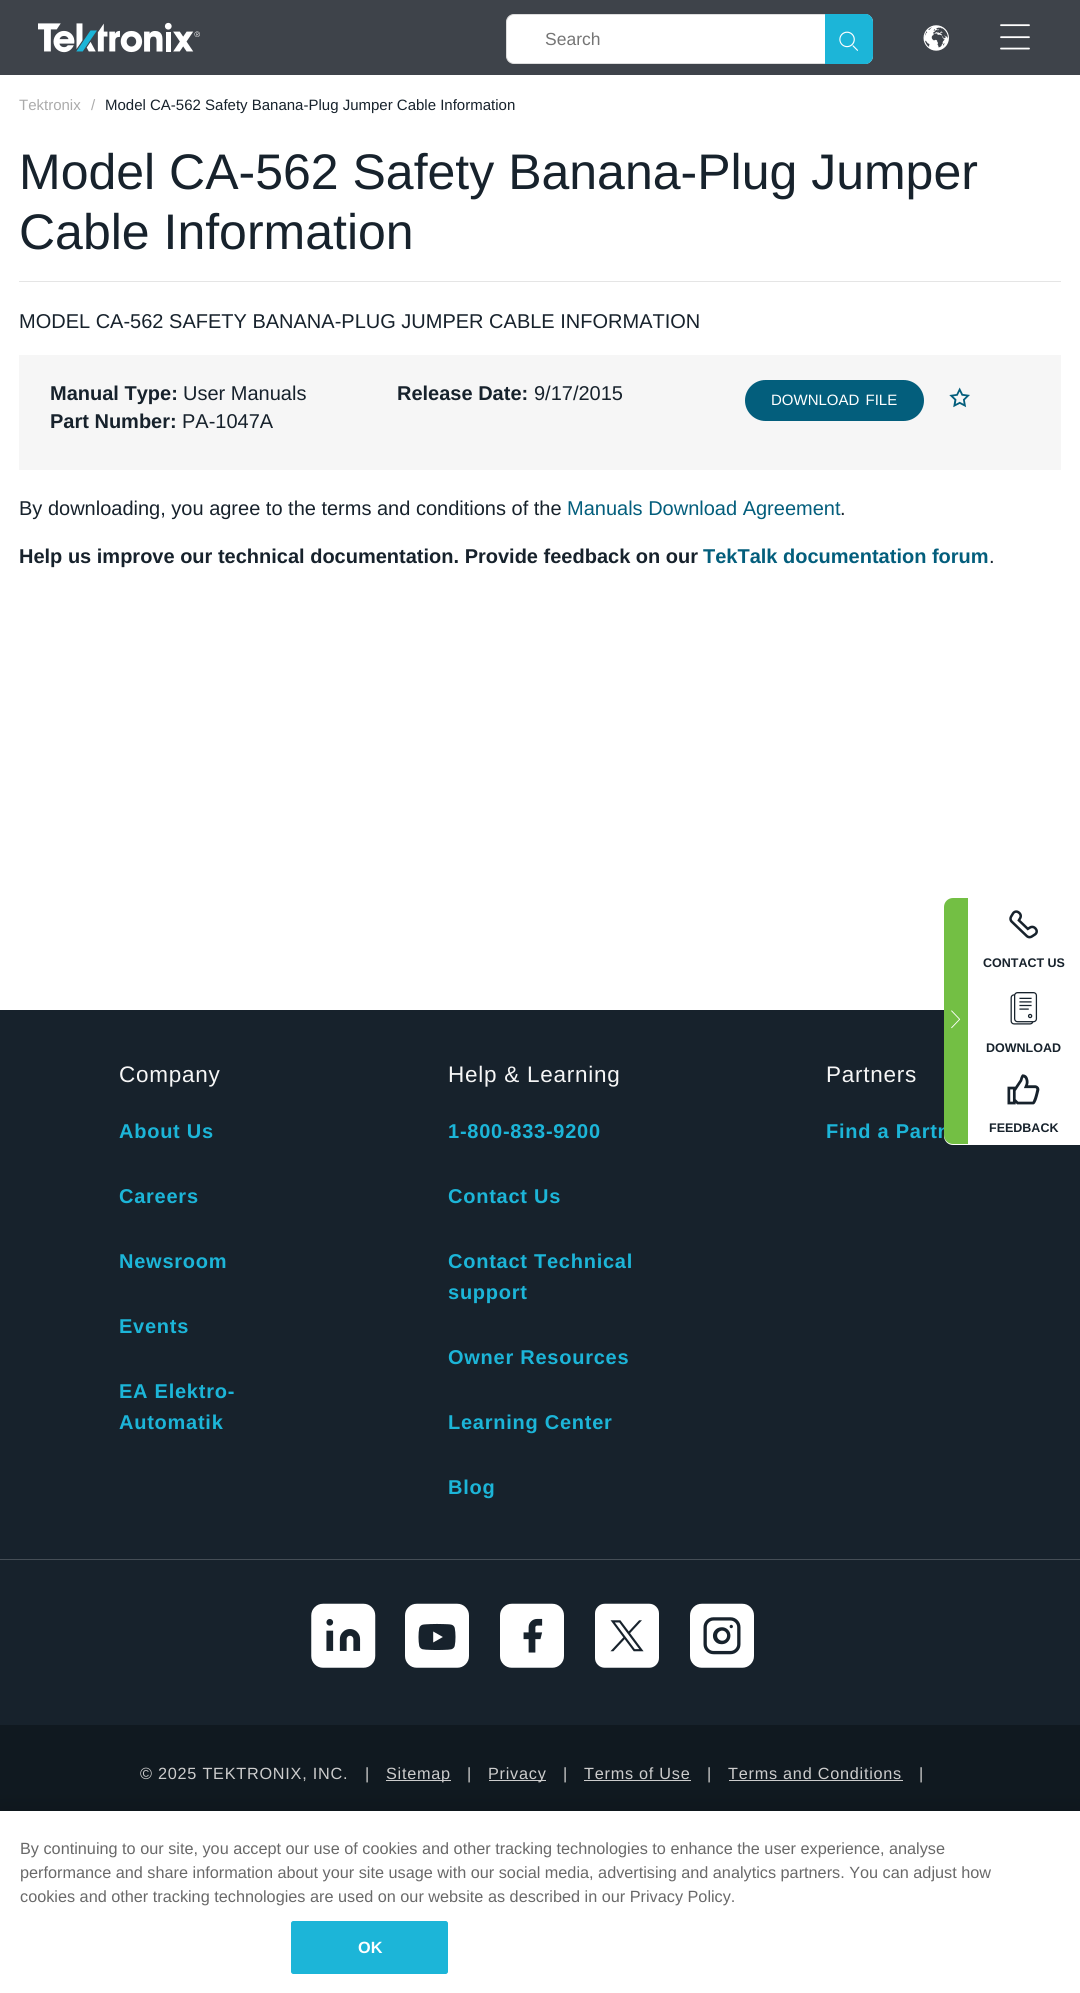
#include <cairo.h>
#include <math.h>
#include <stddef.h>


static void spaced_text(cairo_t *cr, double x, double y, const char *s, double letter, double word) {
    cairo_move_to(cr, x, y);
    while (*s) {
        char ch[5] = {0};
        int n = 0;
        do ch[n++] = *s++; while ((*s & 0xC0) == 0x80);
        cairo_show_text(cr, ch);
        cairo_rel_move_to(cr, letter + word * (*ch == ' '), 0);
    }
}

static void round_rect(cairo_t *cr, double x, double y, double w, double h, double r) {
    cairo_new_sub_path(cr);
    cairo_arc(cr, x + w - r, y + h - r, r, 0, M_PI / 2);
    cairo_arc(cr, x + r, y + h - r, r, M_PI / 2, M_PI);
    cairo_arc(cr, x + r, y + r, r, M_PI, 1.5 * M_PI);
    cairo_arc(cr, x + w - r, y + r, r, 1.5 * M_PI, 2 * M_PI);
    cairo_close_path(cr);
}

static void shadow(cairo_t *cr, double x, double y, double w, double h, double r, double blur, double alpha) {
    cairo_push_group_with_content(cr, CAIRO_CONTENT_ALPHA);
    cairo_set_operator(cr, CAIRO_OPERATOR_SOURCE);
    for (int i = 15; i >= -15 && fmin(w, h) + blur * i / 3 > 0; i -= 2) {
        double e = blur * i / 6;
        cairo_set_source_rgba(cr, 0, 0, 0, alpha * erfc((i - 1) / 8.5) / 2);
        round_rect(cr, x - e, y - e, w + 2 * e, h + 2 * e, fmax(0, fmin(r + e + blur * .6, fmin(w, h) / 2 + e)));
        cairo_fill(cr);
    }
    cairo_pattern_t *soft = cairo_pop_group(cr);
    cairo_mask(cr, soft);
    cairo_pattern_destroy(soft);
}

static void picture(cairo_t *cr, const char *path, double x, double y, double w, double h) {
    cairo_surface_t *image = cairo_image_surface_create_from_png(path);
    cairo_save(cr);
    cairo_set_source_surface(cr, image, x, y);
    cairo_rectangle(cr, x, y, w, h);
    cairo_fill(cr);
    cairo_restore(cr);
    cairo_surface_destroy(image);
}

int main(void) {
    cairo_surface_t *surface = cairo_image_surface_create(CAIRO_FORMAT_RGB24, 1080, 1993);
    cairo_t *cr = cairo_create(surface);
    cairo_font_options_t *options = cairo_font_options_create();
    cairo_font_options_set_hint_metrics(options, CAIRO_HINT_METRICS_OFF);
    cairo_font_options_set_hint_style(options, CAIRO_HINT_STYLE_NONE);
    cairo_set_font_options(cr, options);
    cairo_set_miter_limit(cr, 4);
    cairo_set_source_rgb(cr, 1, 1, 1);
    cairo_paint(cr);
    cairo_set_source_rgb(cr, 0.243, 0.263, 0.29);
    cairo_rectangle(cr, 0, 0, 1080, 75);
    cairo_fill(cr);
    picture(cr, "img1.png", 38, 22, 162, 31);
    cairo_set_source_rgb(cr, 1, 1, 1);
    round_rect(cr, 506.5, 14.5, 366, 49, 7.5);
    cairo_fill_preserve(cr);
    cairo_set_source_rgb(cr, 0.867, 0.867, 0.867);
    cairo_set_line_width(cr, 1);
    cairo_stroke(cr);
    cairo_select_font_face(cr, "Liberation Sans", CAIRO_FONT_SLANT_NORMAL, CAIRO_FONT_WEIGHT_NORMAL);
    cairo_set_font_size(cr, 17.5);
    cairo_set_source_rgb(cr, 0.459, 0.459, 0.459);
    cairo_move_to(cr, 545, 45);
    cairo_show_text(cr, "Search");
    cairo_set_source_rgb(cr, 0.11, 0.71, 0.847);
    cairo_new_path(cr);
    cairo_move_to(cr, 825, 14);
    cairo_line_to(cr, 865, 14);
    cairo_curve_to(cr, 869.5, 14, 873, 17.5, 873, 22);
    cairo_line_to(cr, 873, 56);
    cairo_curve_to(cr, 873, 60.5, 869.5, 64, 865, 64);
    cairo_line_to(cr, 825, 64);
    cairo_close_path(cr);
    cairo_fill(cr);
    picture(cr, "img2.png", 839, 31, 19, 20);
    cairo_set_fill_rule(cr, CAIRO_FILL_RULE_EVEN_ODD);
    cairo_new_path(cr);
    cairo_move_to(cr, 829, 14);
    cairo_line_to(cr, 865, 14);
    cairo_curve_to(cr, 869, 14, 872, 17, 872, 21);
    cairo_line_to(cr, 872, 56);
    cairo_curve_to(cr, 872, 60, 869, 64, 865, 64);
    cairo_line_to(cr, 829, 64);
    cairo_close_path(cr);
    cairo_move_to(cr, 829, 15);
    cairo_line_to(cr, 865, 15);
    cairo_curve_to(cr, 868, 15, 871, 18, 871, 21);
    cairo_line_to(cr, 871, 56);
    cairo_curve_to(cr, 871, 60, 868, 62, 865, 62);
    cairo_line_to(cr, 829, 62);
    cairo_close_path(cr);
    cairo_fill(cr);
    picture(cr, "img3.png", 923, 25, 26, 26);
    picture(cr, "img4.png", 1000, 24, 30, 26);
    cairo_set_font_size(cr, 15);
    cairo_set_source_rgb(cr, 0.671, 0.671, 0.671);
    cairo_move_to(cr, 19, 110);
    cairo_show_text(cr, "Tektronix");
    cairo_move_to(cr, 91, 110);
    cairo_show_text(cr, "/");
    cairo_set_source_rgb(cr, 0.09, 0.133, 0.173);
    cairo_move_to(cr, 105, 110);
    cairo_show_text(cr, "Model CA-562 Safety Banana-Plug Jumper Cable Information");
    cairo_set_source_rgb(cr, 0.898, 0.898, 0.898);
    cairo_rectangle(cr, 19, 281, 1042, 1);
    cairo_fill(cr);
    cairo_set_font_size(cr, 50);
    cairo_set_source_rgb(cr, 0.09, 0.133, 0.173);
    cairo_move_to(cr, 19, 189);
    cairo_show_text(cr, "Model CA-562 Safety Banana-Plug Jumper");
    cairo_move_to(cr, 19, 249);
    cairo_show_text(cr, "Cable Information");
    cairo_set_font_size(cr, 20);
    cairo_move_to(cr, 19, 328);
    cairo_show_text(cr, "MODEL CA-562 SAFETY BANANA-PLUG JUMPER CABLE INFORMATION");
    cairo_set_source_rgb(cr, 0.961, 0.961, 0.961);
    cairo_rectangle(cr, 19, 355, 1042, 115);
    cairo_fill(cr);
    cairo_select_font_face(cr, "Liberation Sans", CAIRO_FONT_SLANT_NORMAL, CAIRO_FONT_WEIGHT_BOLD);
    cairo_set_source_rgb(cr, 0.09, 0.133, 0.173);
    cairo_move_to(cr, 50, 400);
    cairo_show_text(cr, "Manual Type:");
    cairo_select_font_face(cr, "Liberation Sans", CAIRO_FONT_SLANT_NORMAL, CAIRO_FONT_WEIGHT_NORMAL);
    cairo_move_to(cr, 183, 400);
    cairo_show_text(cr, "User Manuals");
    cairo_select_font_face(cr, "Liberation Sans", CAIRO_FONT_SLANT_NORMAL, CAIRO_FONT_WEIGHT_BOLD);
    cairo_move_to(cr, 50, 428);
    cairo_show_text(cr, "Part Number:");
    cairo_select_font_face(cr, "Liberation Sans", CAIRO_FONT_SLANT_NORMAL, CAIRO_FONT_WEIGHT_NORMAL);
    cairo_move_to(cr, 182, 428);
    cairo_show_text(cr, "PA-1047A");
    cairo_select_font_face(cr, "Liberation Sans", CAIRO_FONT_SLANT_NORMAL, CAIRO_FONT_WEIGHT_BOLD);
    cairo_move_to(cr, 397, 400);
    cairo_show_text(cr, "Release Date:");
    cairo_select_font_face(cr, "Liberation Sans", CAIRO_FONT_SLANT_NORMAL, CAIRO_FONT_WEIGHT_NORMAL);
    cairo_move_to(cr, 534, 400);
    cairo_show_text(cr, "9/17/2015");
    cairo_set_source_rgb(cr, 0.012, 0.369, 0.486);
    round_rect(cr, 745, 380, 179, 41, 20.5);
    cairo_fill(cr);
    cairo_set_font_size(cr, 15);
    cairo_set_source_rgb(cr, 1, 1, 1);
    spaced_text(cr, 771, 405, "DOWNLOAD FILE", 0, 2);
    picture(cr, "img5.png", 949, 387, 21, 21);
    cairo_set_font_size(cr, 20);
    cairo_set_source_rgb(cr, 0.09, 0.133, 0.173);
    cairo_move_to(cr, 19, 515);
    cairo_show_text(cr, "By downloading, you agree to the terms and conditions of the");
    cairo_set_source_rgb(cr, 0.012, 0.369, 0.486);
    cairo_move_to(cr, 567, 515);
    cairo_show_text(cr, "Manuals Download Agreement");
    cairo_set_source_rgb(cr, 0.09, 0.133, 0.173);
    cairo_move_to(cr, 840, 515);
    cairo_show_text(cr, ".");
    cairo_select_font_face(cr, "Liberation Sans", CAIRO_FONT_SLANT_NORMAL, CAIRO_FONT_WEIGHT_BOLD);
    cairo_move_to(cr, 19, 563);
    cairo_show_text(cr, "Help us improve our technical documentation. Provide feedback on our");
    cairo_set_source_rgb(cr, 0.012, 0.369, 0.486);
    cairo_move_to(cr, 703, 563);
    cairo_show_text(cr, "TekTalk documentation forum");
    cairo_select_font_face(cr, "Liberation Sans", CAIRO_FONT_SLANT_NORMAL, CAIRO_FONT_WEIGHT_NORMAL);
    cairo_set_source_rgb(cr, 0.09, 0.133, 0.173);
    cairo_move_to(cr, 989, 563);
    cairo_show_text(cr, ".");
    cairo_rectangle(cr, 0, 1010, 1080, 715);
    cairo_fill(cr);
    cairo_select_font_face(cr, "Liberation Sans", CAIRO_FONT_SLANT_NORMAL, CAIRO_FONT_WEIGHT_BOLD);
    cairo_set_source_rgb(cr, 0.11, 0.71, 0.847);
    spaced_text(cr, 826, 1138, "Find a Partn", 0.75, 0);
    cairo_set_source_rgb(cr, 1, 1, 1);
    cairo_new_path(cr);
    cairo_move_to(cr, 953, 898);
    cairo_line_to(cr, 1080, 898);
    cairo_line_to(cr, 1080, 1145);
    cairo_line_to(cr, 953, 1145);
    cairo_curve_to(cr, 948, 1145, 944, 1141, 944, 1136);
    cairo_line_to(cr, 944, 907);
    cairo_curve_to(cr, 944, 902, 948, 898, 953, 898);
    cairo_close_path(cr);
    cairo_fill(cr);
    cairo_set_source_rgb(cr, 0.451, 0.749, 0.267);
    cairo_new_path(cr);
    cairo_move_to(cr, 953, 898);
    cairo_line_to(cr, 968, 898);
    cairo_line_to(cr, 968, 1144);
    cairo_line_to(cr, 953, 1144);
    cairo_curve_to(cr, 948, 1144, 944, 1140, 944, 1135);
    cairo_line_to(cr, 944, 907);
    cairo_curve_to(cr, 944, 902, 948, 898, 953, 898);
    cairo_close_path(cr);
    cairo_fill(cr);
    picture(cr, "img6.png", 951, 1010, 10, 19);
    picture(cr, "img7.png", 1009, 910, 29, 29);
    cairo_set_font_size(cr, 12.5);
    cairo_set_source_rgb(cr, 0.09, 0.133, 0.173);
    cairo_move_to(cr, 983, 967);
    cairo_show_text(cr, "CONTACT US");
    picture(cr, "img8.png", 1010, 992, 28, 33);
    cairo_move_to(cr, 986, 1052);
    cairo_show_text(cr, "DOWNLOAD");
    picture(cr, "img9.png", 1007, 1074, 33, 31);
    cairo_move_to(cr, 989, 1132);
    cairo_show_text(cr, "FEEDBACK");
    cairo_select_font_face(cr, "Liberation Sans", CAIRO_FONT_SLANT_NORMAL, CAIRO_FONT_WEIGHT_NORMAL);
    cairo_set_font_size(cr, 22.5);
    cairo_set_source_rgb(cr, 0.961, 0.961, 0.961);
    spaced_text(cr, 119, 1082, "Company", 0.75, 0);
    cairo_select_font_face(cr, "Liberation Sans", CAIRO_FONT_SLANT_NORMAL, CAIRO_FONT_WEIGHT_BOLD);
    cairo_set_font_size(cr, 20);
    cairo_set_source_rgb(cr, 0.11, 0.71, 0.847);
    spaced_text(cr, 119, 1138, "About Us", 0.75, 0);
    spaced_text(cr, 119, 1203, "Careers", 0.75, 0);
    spaced_text(cr, 119, 1268, "Newsroom", 0.75, 0);
    spaced_text(cr, 119, 1333, "Events", 0.75, 0);
    spaced_text(cr, 119, 1398, "EA Elektro-", 0.75, 0);
    spaced_text(cr, 119, 1429, "Automatik", 0.75, 0);
    cairo_select_font_face(cr, "Liberation Sans", CAIRO_FONT_SLANT_NORMAL, CAIRO_FONT_WEIGHT_NORMAL);
    cairo_set_font_size(cr, 22.5);
    cairo_set_source_rgb(cr, 0.961, 0.961, 0.961);
    spaced_text(cr, 448, 1082, "Help & Learning", 0.75, 0);
    cairo_select_font_face(cr, "Liberation Sans", CAIRO_FONT_SLANT_NORMAL, CAIRO_FONT_WEIGHT_BOLD);
    cairo_set_font_size(cr, 20);
    cairo_set_source_rgb(cr, 0.11, 0.71, 0.847);
    spaced_text(cr, 448, 1138, "1-800-833-9200", 0.75, 0);
    spaced_text(cr, 448, 1203, "Contact Us", 0.75, 0);
    spaced_text(cr, 448, 1268, "Contact Technical", 0.75, 0);
    spaced_text(cr, 448, 1299, "support", 0.75, 0);
    spaced_text(cr, 448, 1364, "Owner Resources", 0.75, 0);
    spaced_text(cr, 448, 1429, "Learning Center", 0.75, 0);
    spaced_text(cr, 448, 1494, "Blog", 0.75, 0);
    cairo_select_font_face(cr, "Liberation Sans", CAIRO_FONT_SLANT_NORMAL, CAIRO_FONT_WEIGHT_NORMAL);
    cairo_set_font_size(cr, 22.5);
    cairo_set_source_rgb(cr, 0.961, 0.961, 0.961);
    spaced_text(cr, 826, 1082, "Partners", 0.75, 0);
    cairo_set_source_rgb(cr, 0.271, 0.306, 0.337);
    cairo_rectangle(cr, 0, 1559, 1080, 1);
    cairo_fill(cr);
    picture(cr, "img10.png", 311, 1603, 65, 65);
    picture(cr, "img11.png", 405, 1603, 64, 65);
    picture(cr, "img12.png", 500, 1603, 64, 65);
    picture(cr, "img13.png", 595, 1603, 64, 65);
    picture(cr, "img14.png", 690, 1603, 64, 65);
    cairo_set_source_rgb(cr, 0.063, 0.098, 0.125);
    cairo_rectangle(cr, 0, 1725, 1080, 86);
    cairo_fill(cr);
    cairo_set_font_size(cr, 16.25);
    cairo_set_source_rgb(cr, 0.8, 0.8, 0.8);
    spaced_text(cr, 140, 1779, "© 2025 TEKTRONIX, INC.", 0.75, 0);
    spaced_text(cr, 365, 1779, "|", 0.75, 0);
    cairo_rectangle(cr, 386, 1780, 65, 1);
    cairo_fill(cr);
    spaced_text(cr, 386, 1779, "Sitemap", 0.75, 0);
    spaced_text(cr, 467, 1779, "|", 0.75, 0);
    cairo_rectangle(cr, 489, 1780, 57, 1);
    cairo_fill(cr);
    spaced_text(cr, 488, 1779, "Privacy", 0.75, 0);
    spaced_text(cr, 563, 1779, "|", 0.75, 0);
    spaced_text(cr, 584, 1779, "Terms of Use", 0.75, 0);
    cairo_rectangle(cr, 584, 1780, 107, 1);
    cairo_fill(cr);
    spaced_text(cr, 707, 1779, "|", 0.75, 0);
    spaced_text(cr, 728, 1779, "Terms and Conditions", 0.75, 0);
    cairo_rectangle(cr, 729, 1780, 174, 1);
    cairo_fill(cr);
    spaced_text(cr, 919, 1779, "|", 0.75, 0);
    cairo_set_source_rgb(cr, 0, 0, 0);
    shadow(cr, 0, 1811, 1080, 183, 0, 11, 0.2);
    cairo_set_source_rgb(cr, 1, 1, 1);
    cairo_rectangle(cr, 0, 1811, 1080, 182);
    cairo_fill(cr);
    cairo_set_source_rgb(cr, 0.412, 0.412, 0.412);
    cairo_move_to(cr, 20, 1854);
    cairo_show_text(cr, "By continuing to our site, you accept our use of cookies and other tracking technologies to enhance the user experience, analyse");
    cairo_move_to(cr, 20, 1878);
    cairo_show_text(cr, "performance and share information about your site usage with our social media, advertising and analytics partners. You can adjust how");
    cairo_move_to(cr, 20, 1902);
    cairo_show_text(cr, "cookies and other tracking technologies are used on our website as described in our Privacy Policy.");
    cairo_set_source_rgb(cr, 0.11, 0.71, 0.847);
    round_rect(cr, 291.5, 1921.5, 156, 52, 2);
    cairo_fill_preserve(cr);
    cairo_stroke(cr);
    cairo_select_font_face(cr, "Liberation Sans", CAIRO_FONT_SLANT_NORMAL, CAIRO_FONT_WEIGHT_BOLD);
    cairo_set_source_rgb(cr, 1, 1, 1);
    cairo_move_to(cr, 358, 1953);
    cairo_show_text(cr, "OK");
    cairo_surface_write_to_png(surface, "page.png");
    cairo_font_options_destroy(options);
    cairo_destroy(cr);
    cairo_surface_destroy(surface);
    return 0;
}
